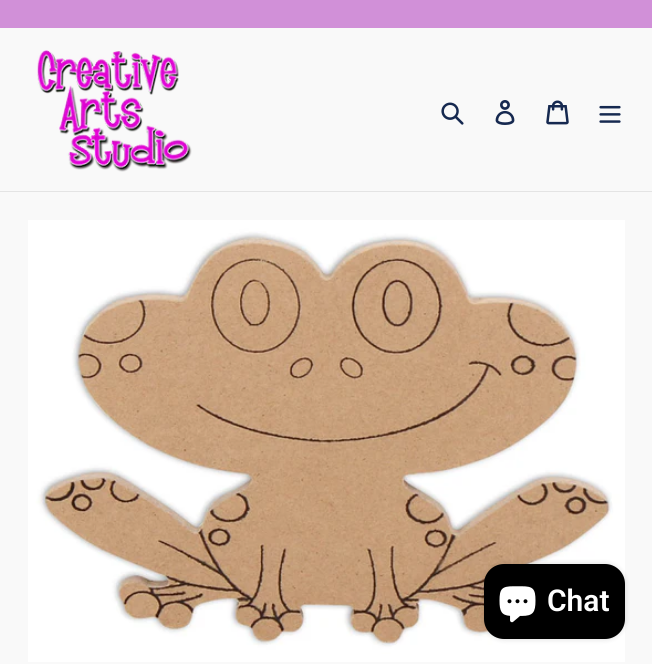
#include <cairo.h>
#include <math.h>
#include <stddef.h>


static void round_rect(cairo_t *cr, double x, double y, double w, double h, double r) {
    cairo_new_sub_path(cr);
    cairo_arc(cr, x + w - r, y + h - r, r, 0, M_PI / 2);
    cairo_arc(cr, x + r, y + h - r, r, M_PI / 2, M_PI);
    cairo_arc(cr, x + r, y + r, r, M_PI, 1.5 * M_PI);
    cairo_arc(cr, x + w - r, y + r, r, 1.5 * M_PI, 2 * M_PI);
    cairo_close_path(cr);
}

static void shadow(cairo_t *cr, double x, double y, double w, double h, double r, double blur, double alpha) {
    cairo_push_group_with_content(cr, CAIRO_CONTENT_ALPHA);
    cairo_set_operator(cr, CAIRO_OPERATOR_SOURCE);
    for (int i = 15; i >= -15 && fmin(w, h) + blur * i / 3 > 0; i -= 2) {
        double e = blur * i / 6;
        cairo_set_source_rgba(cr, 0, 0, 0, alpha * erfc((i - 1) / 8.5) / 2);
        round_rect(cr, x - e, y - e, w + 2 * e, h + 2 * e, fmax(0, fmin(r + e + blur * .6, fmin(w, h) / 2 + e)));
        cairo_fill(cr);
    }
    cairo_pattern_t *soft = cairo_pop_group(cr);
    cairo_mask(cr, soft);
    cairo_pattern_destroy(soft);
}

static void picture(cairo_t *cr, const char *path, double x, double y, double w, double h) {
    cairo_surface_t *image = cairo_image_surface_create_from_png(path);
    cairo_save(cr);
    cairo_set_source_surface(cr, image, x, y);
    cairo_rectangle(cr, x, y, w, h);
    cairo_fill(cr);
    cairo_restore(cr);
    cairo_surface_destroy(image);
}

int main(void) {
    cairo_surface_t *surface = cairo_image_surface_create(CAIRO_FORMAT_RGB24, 652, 664);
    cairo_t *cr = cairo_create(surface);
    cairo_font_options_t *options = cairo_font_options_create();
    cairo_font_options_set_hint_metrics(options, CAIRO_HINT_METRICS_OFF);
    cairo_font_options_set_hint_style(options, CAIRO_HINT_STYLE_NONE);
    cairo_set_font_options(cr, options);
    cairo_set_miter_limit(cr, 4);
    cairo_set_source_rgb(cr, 0.973, 0.973, 0.973);
    cairo_paint(cr);
    cairo_set_source_rgb(cr, 0.82, 0.565, 0.847);
    cairo_rectangle(cr, 0, 0, 652, 28);
    cairo_fill(cr);
    cairo_set_source_rgb(cr, 0.894, 0.894, 0.894);
    cairo_rectangle(cr, 0, 191, 652, 1);
    cairo_fill(cr);
    picture(cr, "img1.png", 37, 50, 155, 122);
    picture(cr, "img2.png", 441, 102, 23, 23);
    picture(cr, "img3.png", 495, 100, 20, 25);
    picture(cr, "img4.png", 546, 100, 23, 25);
    picture(cr, "img5.png", 599, 105, 22, 18);
    picture(cr, "img6.png", 28, 220, 597, 442);
    cairo_set_source_rgb(cr, 0, 0, 0);
    shadow(cr, 484, 564, 141, 75, 20, 3, 0.15);
    cairo_set_source_rgb(cr, 0, 0, 0);
    round_rect(cr, 484, 564, 141, 75, 20);
    cairo_fill(cr);
    picture(cr, "img7.png", 499, 586, 37, 37);
    cairo_select_font_face(cr, "Roboto SemiBold", CAIRO_FONT_SLANT_NORMAL, CAIRO_FONT_WEIGHT_NORMAL);
    cairo_set_font_size(cr, 30);
    cairo_set_source_rgb(cr, 1, 1, 1);
    cairo_move_to(cr, 547, 611);
    cairo_show_text(cr, "Chat");
    cairo_surface_write_to_png(surface, "page.png");
    cairo_font_options_destroy(options);
    cairo_destroy(cr);
    cairo_surface_destroy(surface);
    return 0;
}
